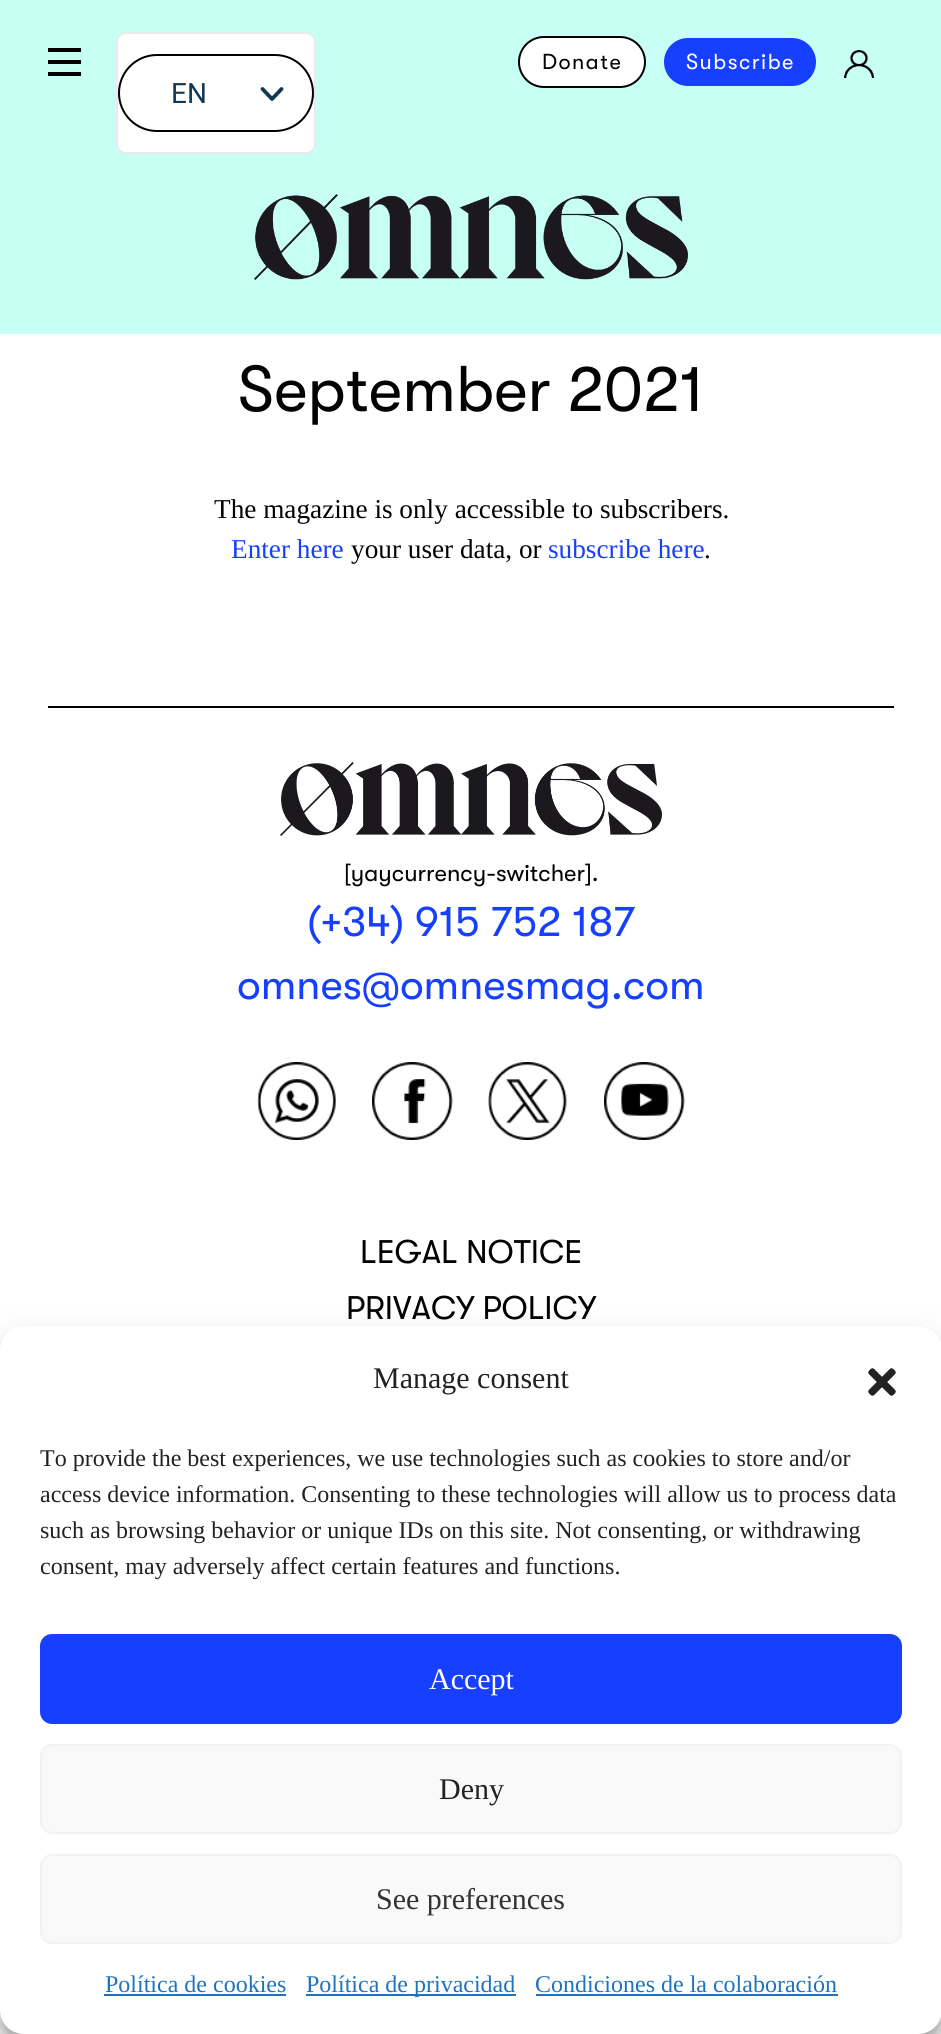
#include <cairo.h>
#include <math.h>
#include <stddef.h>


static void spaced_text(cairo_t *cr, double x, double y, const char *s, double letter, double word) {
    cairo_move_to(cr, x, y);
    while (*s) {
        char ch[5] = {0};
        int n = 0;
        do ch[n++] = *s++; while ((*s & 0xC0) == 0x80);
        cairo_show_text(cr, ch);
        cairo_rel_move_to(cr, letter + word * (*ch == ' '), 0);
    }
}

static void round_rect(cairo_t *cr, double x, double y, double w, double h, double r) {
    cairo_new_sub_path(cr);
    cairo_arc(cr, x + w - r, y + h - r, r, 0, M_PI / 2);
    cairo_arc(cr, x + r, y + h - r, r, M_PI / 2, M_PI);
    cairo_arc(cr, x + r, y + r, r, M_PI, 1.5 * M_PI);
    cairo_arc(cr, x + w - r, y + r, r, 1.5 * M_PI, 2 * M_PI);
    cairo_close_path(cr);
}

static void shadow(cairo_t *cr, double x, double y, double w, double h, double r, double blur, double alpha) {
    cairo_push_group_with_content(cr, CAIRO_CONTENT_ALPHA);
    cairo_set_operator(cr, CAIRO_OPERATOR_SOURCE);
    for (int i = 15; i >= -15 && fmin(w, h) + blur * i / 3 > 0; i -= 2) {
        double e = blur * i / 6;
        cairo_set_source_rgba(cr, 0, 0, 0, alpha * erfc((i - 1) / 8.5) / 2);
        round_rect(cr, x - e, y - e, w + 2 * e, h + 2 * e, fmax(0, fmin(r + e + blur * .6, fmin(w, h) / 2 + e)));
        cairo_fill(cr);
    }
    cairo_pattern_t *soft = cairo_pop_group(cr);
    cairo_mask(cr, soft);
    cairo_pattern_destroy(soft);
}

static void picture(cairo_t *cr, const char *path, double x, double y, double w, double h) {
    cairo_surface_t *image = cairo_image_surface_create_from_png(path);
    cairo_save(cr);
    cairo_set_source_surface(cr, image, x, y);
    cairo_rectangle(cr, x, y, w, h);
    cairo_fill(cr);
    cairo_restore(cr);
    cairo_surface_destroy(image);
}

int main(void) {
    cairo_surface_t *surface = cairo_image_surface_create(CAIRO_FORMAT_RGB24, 941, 2034);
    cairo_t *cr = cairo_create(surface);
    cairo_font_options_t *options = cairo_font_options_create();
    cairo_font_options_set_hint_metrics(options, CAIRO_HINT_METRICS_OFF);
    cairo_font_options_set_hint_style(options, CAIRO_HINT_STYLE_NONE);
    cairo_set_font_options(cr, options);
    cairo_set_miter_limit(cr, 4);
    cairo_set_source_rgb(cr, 1, 1, 1);
    cairo_paint(cr);
    cairo_set_source_rgb(cr, 0.784, 1, 0.957);
    cairo_rectangle(cr, 0, 0, 941, 334);
    cairo_fill(cr);
    cairo_set_source_rgb(cr, 1, 1, 1);
    round_rect(cr, 519, 37, 126, 50, 25);
    cairo_fill_preserve(cr);
    cairo_set_source_rgb(cr, 0, 0, 0);
    cairo_stroke(cr);
    cairo_select_font_face(cr, "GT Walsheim", CAIRO_FONT_SLANT_NORMAL, CAIRO_FONT_WEIGHT_NORMAL);
    cairo_set_font_size(cr, 21.75);
    cairo_set_source_rgb(cr, 0.008, 0.008, 0.008);
    spaced_text(cr, 542, 69, "Donate", 1.5, 0);
    cairo_set_source_rgb(cr, 0.09, 0.247, 1);
    round_rect(cr, 664, 38, 152, 48, 24);
    cairo_fill(cr);
    cairo_set_source_rgb(cr, 1, 1, 1);
    spaced_text(cr, 686, 69, "Subscribe", 1.5, 0);
    picture(cr, "img1.png", 844, 50, 30, 28);
    picture(cr, "img2.png", 48, 48, 34, 28);
    round_rect(cr, 116, 32, 200, 122, 10);
    cairo_fill(cr);
    round_rect(cr, 117, 33, 198, 120, 9);
    cairo_set_source_rgba(cr, 0.078, 0.22, 0.322, 0.1);
    cairo_stroke(cr);
    round_rect(cr, 119, 55, 194, 76, 38);
    cairo_set_source_rgb(cr, 0, 0, 0);
    cairo_stroke(cr);
    cairo_select_font_face(cr, "Roboto", CAIRO_FONT_SLANT_NORMAL, CAIRO_FONT_WEIGHT_NORMAL);
    cairo_set_font_size(cr, 28);
    cairo_set_source_rgb(cr, 0.078, 0.22, 0.322);
    cairo_move_to(cr, 171, 103);
    cairo_show_text(cr, "EN");
    cairo_new_path(cr);
    cairo_move_to(cr, 262.5, 89);
    cairo_line_to(cr, 272, 99);
    cairo_line_to(cr, 281.5, 89);
    cairo_set_line_width(cr, 3.8);
    cairo_set_line_cap(cr, CAIRO_LINE_CAP_ROUND);
    cairo_set_line_join(cr, CAIRO_LINE_JOIN_ROUND);
    cairo_stroke(cr);
    picture(cr, "img3.png", 254, 194, 434, 86);
    cairo_select_font_face(cr, "GT Walsheim", CAIRO_FONT_SLANT_NORMAL, CAIRO_FONT_WEIGHT_NORMAL);
    cairo_set_font_size(cr, 64.5);
    cairo_set_source_rgb(cr, 0.008, 0.008, 0.008);
    cairo_move_to(cr, 238, 411);
    cairo_show_text(cr, "September 2021");
    cairo_select_font_face(cr, "Liberation Serif", CAIRO_FONT_SLANT_NORMAL, CAIRO_FONT_WEIGHT_NORMAL);
    cairo_set_font_size(cr, 27.25);
    cairo_move_to(cr, 214, 518);
    cairo_show_text(cr, "The magazine is only accessible to subscribers.");
    cairo_set_source_rgb(cr, 0.09, 0.247, 1);
    cairo_move_to(cr, 231, 558);
    cairo_show_text(cr, "Enter here");
    cairo_set_source_rgb(cr, 0.008, 0.008, 0.008);
    cairo_move_to(cr, 351, 558);
    cairo_show_text(cr, "your user data, or");
    cairo_set_source_rgb(cr, 0.09, 0.247, 1);
    cairo_move_to(cr, 548, 558);
    cairo_show_text(cr, "subscribe here");
    cairo_set_source_rgb(cr, 0.008, 0.008, 0.008);
    cairo_move_to(cr, 704, 558);
    cairo_show_text(cr, ".");
    cairo_set_source_rgb(cr, 0, 0, 0);
    cairo_rectangle(cr, 48, 706, 846, 2);
    cairo_fill(cr);
    picture(cr, "img4.png", 280, 762, 382, 74);
    cairo_select_font_face(cr, "GT Walsheim", CAIRO_FONT_SLANT_NORMAL, CAIRO_FONT_WEIGHT_NORMAL);
    cairo_set_font_size(cr, 23.75);
    cairo_set_source_rgb(cr, 0.008, 0.008, 0.008);
    cairo_move_to(cr, 344, 881);
    cairo_show_text(cr, "[yaycurrency-switcher].");
    cairo_set_font_size(cr, 42.75);
    cairo_set_source_rgb(cr, 0.09, 0.247, 1);
    cairo_move_to(cr, 307, 936);
    cairo_show_text(cr, "(+34) 915 752 187");
    cairo_move_to(cr, 237, 999);
    cairo_show_text(cr, "omnes@omnesmag.com");
    picture(cr, "img5.png", 257, 1062, 79, 78);
    picture(cr, "img6.png", 372, 1062, 81, 78);
    picture(cr, "img7.png", 488, 1062, 79, 78);
    picture(cr, "img8.png", 604, 1062, 81, 78);
    cairo_set_font_size(cr, 32.75);
    cairo_set_source_rgb(cr, 0.008, 0.008, 0.008);
    cairo_move_to(cr, 360, 1263);
    cairo_show_text(cr, "LEGAL NOTICE");
    cairo_move_to(cr, 346, 1319);
    cairo_show_text(cr, "PRIVACY POLICY");
    cairo_set_source_rgb(cr, 0, 0, 0);
    shadow(cr, 0, 1338, 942, 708, 24, 6, 0.23);
    shadow(cr, 0, 1346, 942, 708, 24, 20, 0.19);
    cairo_set_source_rgb(cr, 1, 1, 1);
    round_rect(cr, 0, 1326, 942, 708, 24);
    cairo_fill(cr);
    cairo_select_font_face(cr, "Liberation Serif", CAIRO_FONT_SLANT_NORMAL, CAIRO_FONT_WEIGHT_NORMAL);
    cairo_set_font_size(cr, 30);
    cairo_set_source_rgb(cr, 0.133, 0.133, 0.133);
    cairo_move_to(cr, 373, 1388);
    cairo_show_text(cr, "Manage consent");
    picture(cr, "img9.png", 868, 1368, 28, 28);
    cairo_set_font_size(cr, 24);
    cairo_move_to(cr, 40, 1466);
    cairo_show_text(cr, "To provide the best experiences, we use technologies such as cookies to store and/or");
    cairo_move_to(cr, 40, 1502);
    cairo_show_text(cr, "access device information. Consenting to these technologies will allow us to process data");
    cairo_move_to(cr, 40, 1538);
    cairo_show_text(cr, "such as browsing behavior or unique IDs on this site. Not consenting, or withdrawing");
    cairo_move_to(cr, 40, 1574);
    cairo_show_text(cr, "consent, may adversely affect certain features and functions.");
    cairo_set_source_rgb(cr, 0.09, 0.247, 1);
    round_rect(cr, 41, 1635, 860, 88, 11);
    cairo_fill_preserve(cr);
    cairo_set_line_width(cr, 2);
    cairo_set_line_cap(cr, CAIRO_LINE_CAP_BUTT);
    cairo_set_line_join(cr, CAIRO_LINE_JOIN_MITER);
    cairo_stroke(cr);
    cairo_set_font_size(cr, 30);
    cairo_set_source_rgb(cr, 1, 1, 1);
    cairo_move_to(cr, 429, 1689);
    cairo_show_text(cr, "Accept");
    cairo_set_source_rgb(cr, 0.976, 0.976, 0.976);
    round_rect(cr, 41, 1745, 860, 88, 11);
    cairo_fill_preserve(cr);
    cairo_set_source_rgb(cr, 0.949, 0.949, 0.949);
    cairo_stroke(cr);
    cairo_set_source_rgb(cr, 0.133, 0.133, 0.133);
    cairo_move_to(cr, 439, 1799);
    cairo_show_text(cr, "Deny");
    cairo_set_source_rgb(cr, 0.976, 0.976, 0.976);
    round_rect(cr, 41, 1855, 860, 88, 11);
    cairo_fill_preserve(cr);
    cairo_set_source_rgb(cr, 0.949, 0.949, 0.949);
    cairo_stroke(cr);
    cairo_set_source_rgb(cr, 0.2, 0.2, 0.2);
    cairo_move_to(cr, 376, 1909);
    cairo_show_text(cr, "See preferences");
    cairo_set_font_size(cr, 24);
    cairo_set_source_rgb(cr, 0.118, 0.451, 0.745);
    cairo_move_to(cr, 105, 1992);
    cairo_show_text(cr, "Política de cookies");
    cairo_rectangle(cr, 104, 1994, 182, 2);
    cairo_fill(cr);
    cairo_rectangle(cr, 306, 1994, 210, 2);
    cairo_fill(cr);
    cairo_move_to(cr, 306, 1992);
    cairo_show_text(cr, "Política de privacidad");
    cairo_move_to(cr, 535, 1992);
    cairo_show_text(cr, "Condiciones de la colaboración");
    cairo_rectangle(cr, 536, 1994, 302, 2);
    cairo_fill(cr);
    cairo_surface_write_to_png(surface, "page.png");
    cairo_font_options_destroy(options);
    cairo_destroy(cr);
    cairo_surface_destroy(surface);
    return 0;
}
